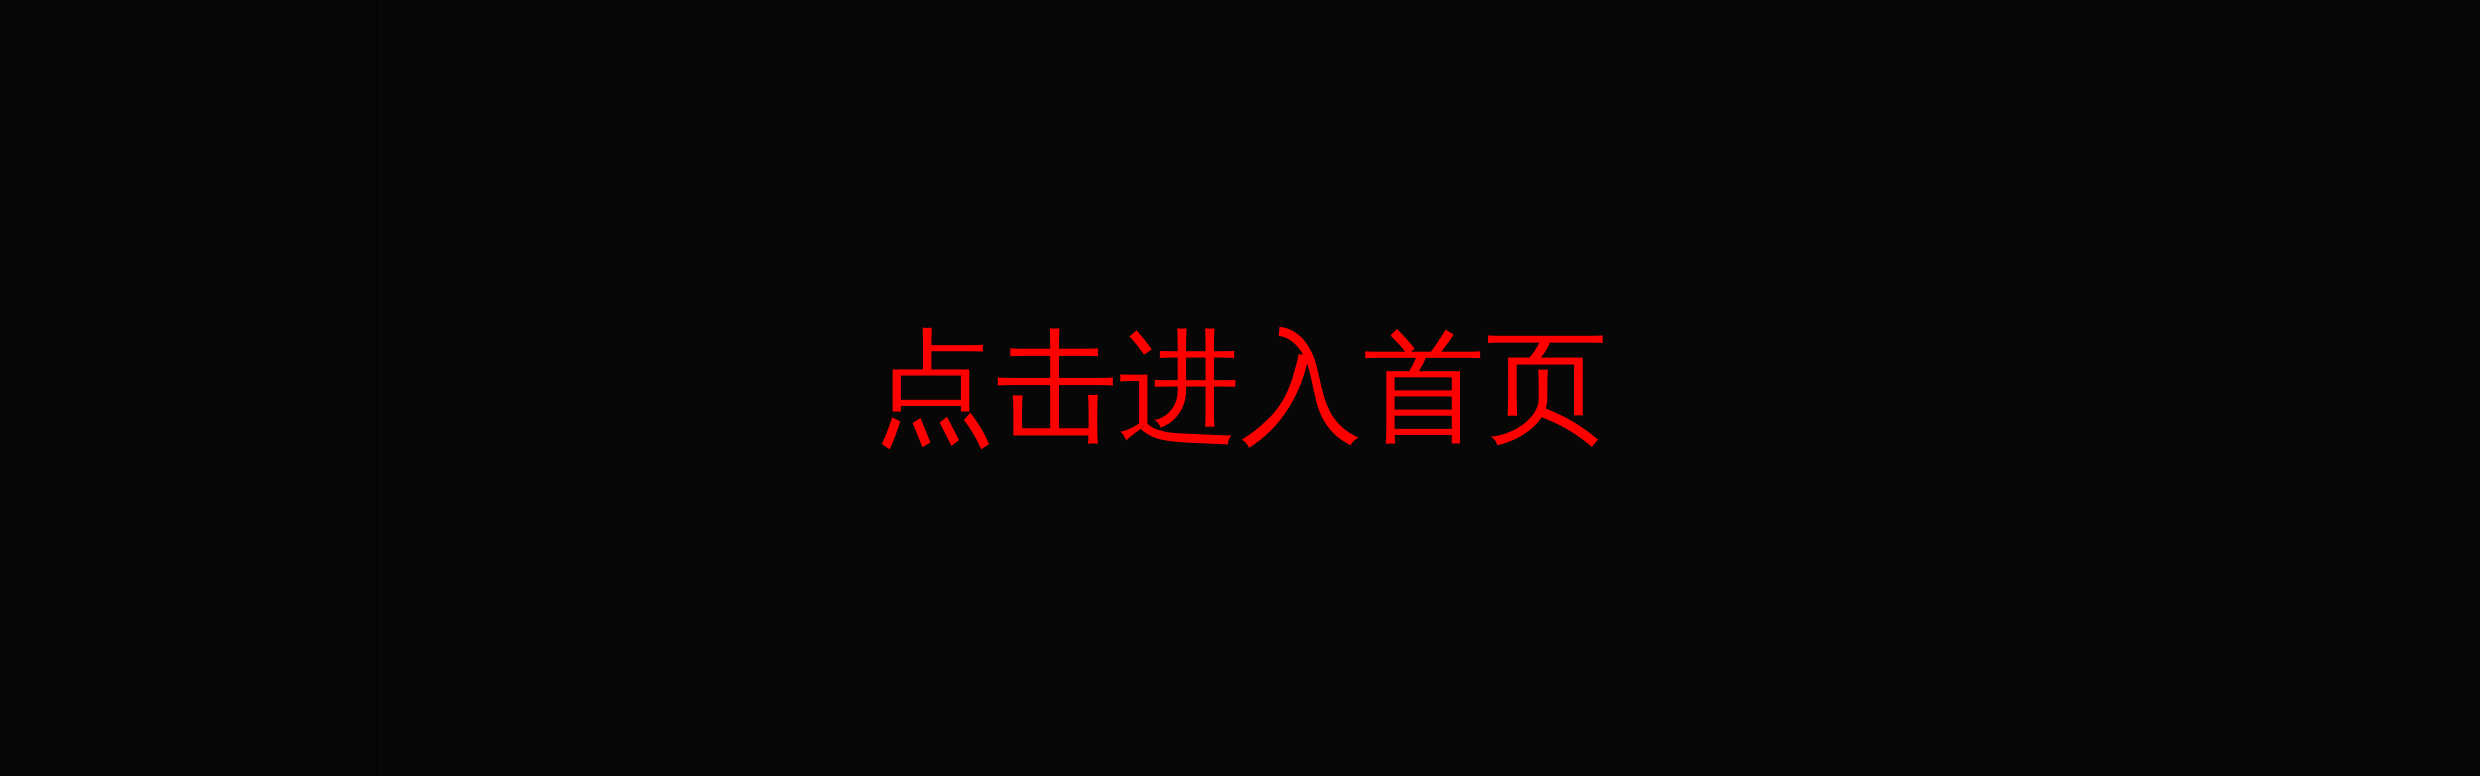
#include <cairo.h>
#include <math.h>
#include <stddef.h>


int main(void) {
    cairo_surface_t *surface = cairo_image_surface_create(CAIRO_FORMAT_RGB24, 2480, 776);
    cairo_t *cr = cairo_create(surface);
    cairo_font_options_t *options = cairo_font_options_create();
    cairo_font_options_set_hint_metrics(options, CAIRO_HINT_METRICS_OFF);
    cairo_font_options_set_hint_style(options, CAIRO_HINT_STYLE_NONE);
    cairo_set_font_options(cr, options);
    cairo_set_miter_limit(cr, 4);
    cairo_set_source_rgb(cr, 0.031, 0.031, 0.031);
    cairo_paint(cr);
    cairo_rectangle(cr, 377, -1, 1727, 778);
    cairo_set_source_rgb(cr, 0.027, 0.016, 0.008);
    cairo_stroke(cr);
    cairo_new_path(cr);
    cairo_move_to(cr, 413, 69);
    cairo_line_to(cr, 2068.5, 69);
    cairo_set_source_rgb(cr, 0.027, 0.02, 0.004);
    cairo_set_line_width(cr, 1.8);
    cairo_set_dash(cr, (double[]){5.25, 3.48}, 2, 0);
    cairo_stroke(cr);
    cairo_new_path(cr);
    cairo_move_to(cr, 413, 120);
    cairo_line_to(cr, 2068.5, 120);
    cairo_stroke(cr);
    cairo_new_path(cr);
    cairo_move_to(cr, 413, 170.5);
    cairo_line_to(cr, 2068.5, 170.5);
    cairo_stroke(cr);
    cairo_new_path(cr);
    cairo_move_to(cr, 413, 221.5);
    cairo_line_to(cr, 2068.5, 221.5);
    cairo_stroke(cr);
    cairo_new_path(cr);
    cairo_move_to(cr, 413, 272);
    cairo_line_to(cr, 2068.5, 272);
    cairo_stroke(cr);
    cairo_new_path(cr);
    cairo_move_to(cr, 413, 323);
    cairo_line_to(cr, 2068.5, 323);
    cairo_stroke(cr);
    cairo_new_path(cr);
    cairo_move_to(cr, 413, 373.5);
    cairo_line_to(cr, 2068.5, 373.5);
    cairo_stroke(cr);
    cairo_new_path(cr);
    cairo_move_to(cr, 413, 424.5);
    cairo_line_to(cr, 2068.5, 424.5);
    cairo_stroke(cr);
    cairo_new_path(cr);
    cairo_move_to(cr, 413, 475);
    cairo_line_to(cr, 2068.5, 475);
    cairo_stroke(cr);
    cairo_new_path(cr);
    cairo_move_to(cr, 413, 526);
    cairo_line_to(cr, 2068.5, 526);
    cairo_stroke(cr);
    cairo_new_path(cr);
    cairo_move_to(cr, 413, 576.5);
    cairo_line_to(cr, 2068.5, 576.5);
    cairo_stroke(cr);
    cairo_new_path(cr);
    cairo_move_to(cr, 413, 627.5);
    cairo_line_to(cr, 2068.5, 627.5);
    cairo_stroke(cr);
    cairo_new_path(cr);
    cairo_move_to(cr, 413, 678);
    cairo_line_to(cr, 2068.5, 678);
    cairo_stroke(cr);
    cairo_new_path(cr);
    cairo_move_to(cr, 413, 729);
    cairo_line_to(cr, 2068.5, 729);
    cairo_stroke(cr);
    cairo_select_font_face(cr, "WenQuanYi Zen Hei Medium", CAIRO_FONT_SLANT_NORMAL, CAIRO_FONT_WEIGHT_NORMAL);
    cairo_set_font_size(cr, 122.5);
    cairo_set_source_rgb(cr, 1, 0, 0);
    cairo_move_to(cr, 873, 429);
    cairo_show_text(cr, "点击进入首页");
    cairo_surface_write_to_png(surface, "page.png");
    cairo_font_options_destroy(options);
    cairo_destroy(cr);
    cairo_surface_destroy(surface);
    return 0;
}
